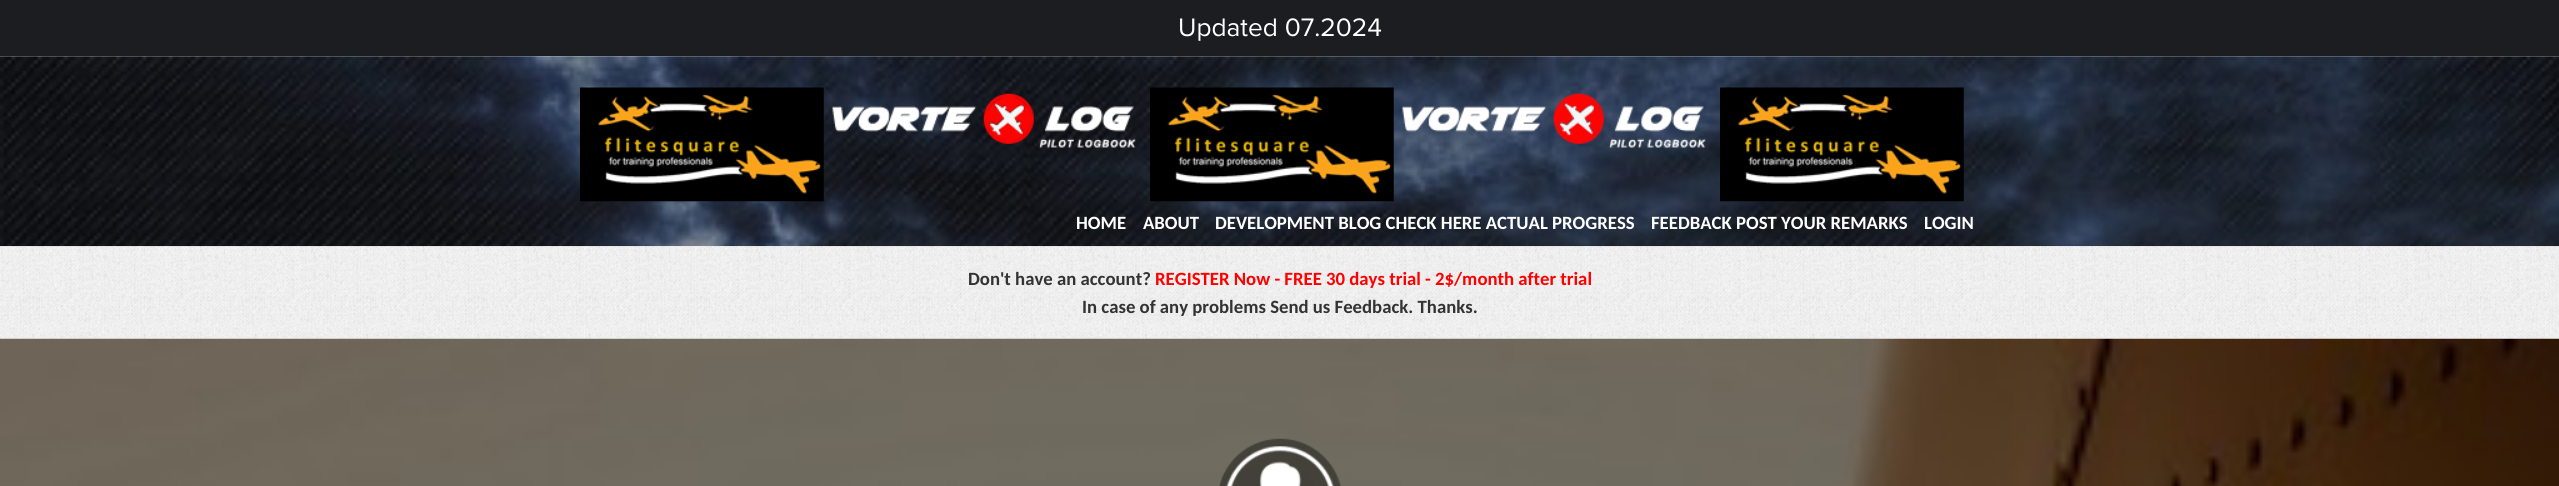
#include <cairo.h>
#include <math.h>
#include <stddef.h>


static void picture(cairo_t *cr, const char *path, double x, double y, double w, double h) {
    cairo_surface_t *image = cairo_image_surface_create_from_png(path);
    cairo_save(cr);
    cairo_set_source_surface(cr, image, x, y);
    cairo_rectangle(cr, x, y, w, h);
    cairo_fill(cr);
    cairo_restore(cr);
    cairo_surface_destroy(image);
}

int main(void) {
    cairo_surface_t *surface = cairo_image_surface_create(CAIRO_FORMAT_RGB24, 2559, 486);
    cairo_t *cr = cairo_create(surface);
    cairo_font_options_t *options = cairo_font_options_create();
    cairo_font_options_set_hint_metrics(options, CAIRO_HINT_METRICS_OFF);
    cairo_font_options_set_hint_style(options, CAIRO_HINT_STYLE_NONE);
    cairo_set_font_options(cr, options);
    cairo_set_miter_limit(cr, 4);
    cairo_set_source_rgb(cr, 1, 1, 1);
    cairo_paint(cr);
    cairo_set_source_rgb(cr, 0.106, 0.114, 0.125);
    cairo_rectangle(cr, 0, 0, 2559, 56);
    cairo_fill(cr);
    cairo_select_font_face(cr, "Proxima Nova", CAIRO_FONT_SLANT_NORMAL, CAIRO_FONT_WEIGHT_NORMAL);
    cairo_set_font_size(cr, 26.25);
    cairo_set_source_rgb(cr, 1, 1, 1);
    cairo_move_to(cr, 1178, 36);
    cairo_show_text(cr, "Updated 07.2024");
    picture(cr, "img1.png", 0, 56, 2559, 191);
    picture(cr, "img2.png", 580, 87, 244, 115);
    picture(cr, "img3.png", 832, 93, 304, 55);
    picture(cr, "img4.png", 1150, 87, 244, 115);
    picture(cr, "img5.png", 1402, 93, 304, 55);
    picture(cr, "img6.png", 1720, 87, 244, 115);
    cairo_select_font_face(cr, "Carlito", CAIRO_FONT_SLANT_NORMAL, CAIRO_FONT_WEIGHT_BOLD);
    cairo_set_font_size(cr, 18.75);
    cairo_move_to(cr, 1076, 229);
    cairo_show_text(cr, "HOME");
    cairo_move_to(cr, 1143, 229);
    cairo_show_text(cr, "ABOUT");
    cairo_move_to(cr, 1215, 229);
    cairo_show_text(cr, "DEVELOPMENT BLOG CHECK HERE ACTUAL PROGRESS");
    cairo_move_to(cr, 1651, 229);
    cairo_show_text(cr, "FEEDBACK POST YOUR REMARKS");
    cairo_move_to(cr, 1924, 229);
    cairo_show_text(cr, "LOGIN");
    picture(cr, "img7.png", 0, 246, 2559, 93);
    cairo_set_source_rgb(cr, 0.2, 0.2, 0.2);
    cairo_move_to(cr, 968, 285);
    cairo_show_text(cr, "Don't have an account?");
    cairo_set_source_rgb(cr, 1, 0, 0);
    cairo_move_to(cr, 1155, 285);
    cairo_show_text(cr, "REGISTER Now - FREE 30 days trial - 2$/month after trial");
    cairo_set_source_rgb(cr, 0.2, 0.2, 0.2);
    cairo_move_to(cr, 1082, 313);
    cairo_show_text(cr, "In case of any problems Send us Feedback. Thanks.");
    picture(cr, "img8.png", 0, 338, 2559, 148);
    picture(cr, "img9.png", 1219, 438, 123, 48);
    cairo_surface_write_to_png(surface, "page.png");
    cairo_font_options_destroy(options);
    cairo_destroy(cr);
    cairo_surface_destroy(surface);
    return 0;
}
